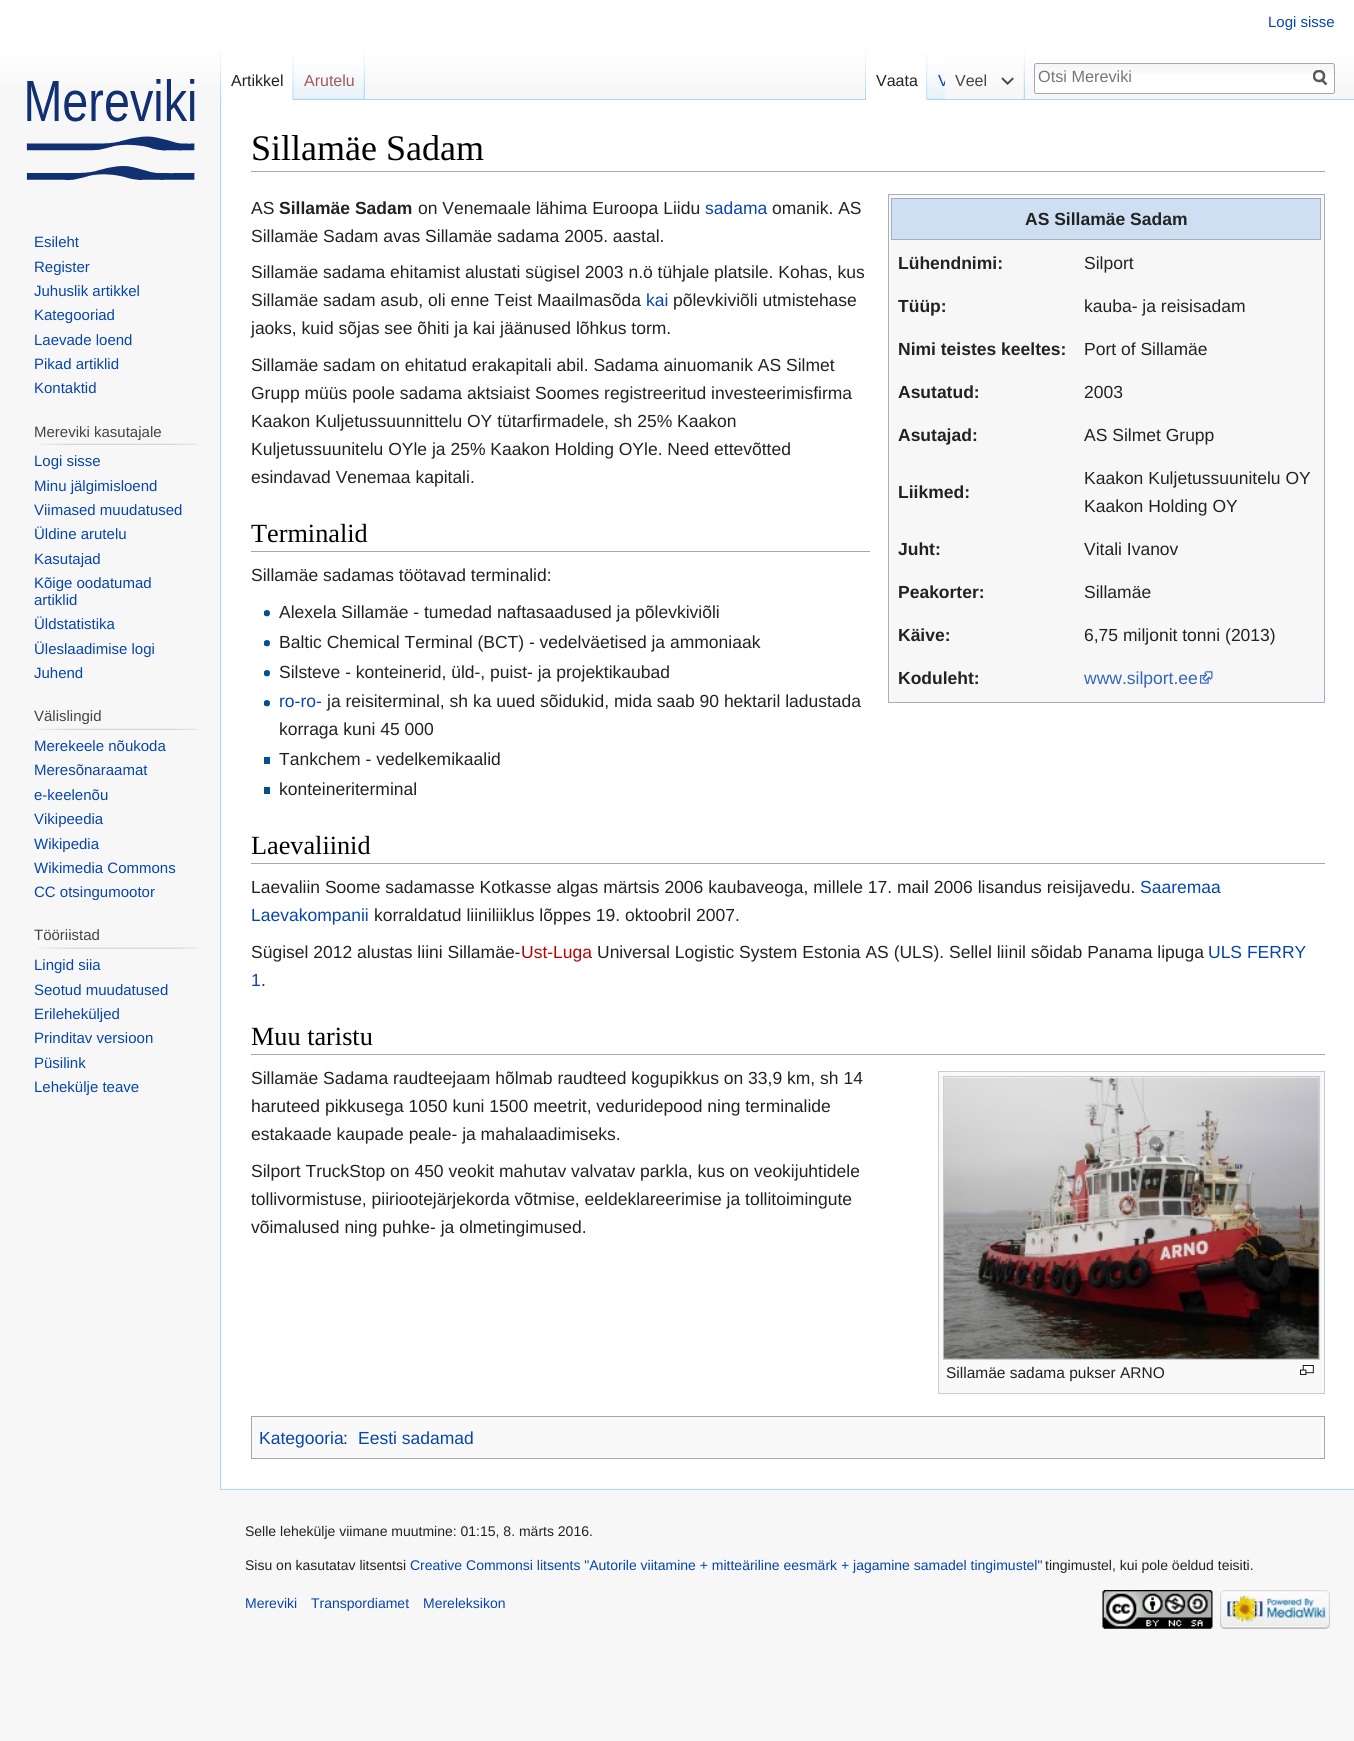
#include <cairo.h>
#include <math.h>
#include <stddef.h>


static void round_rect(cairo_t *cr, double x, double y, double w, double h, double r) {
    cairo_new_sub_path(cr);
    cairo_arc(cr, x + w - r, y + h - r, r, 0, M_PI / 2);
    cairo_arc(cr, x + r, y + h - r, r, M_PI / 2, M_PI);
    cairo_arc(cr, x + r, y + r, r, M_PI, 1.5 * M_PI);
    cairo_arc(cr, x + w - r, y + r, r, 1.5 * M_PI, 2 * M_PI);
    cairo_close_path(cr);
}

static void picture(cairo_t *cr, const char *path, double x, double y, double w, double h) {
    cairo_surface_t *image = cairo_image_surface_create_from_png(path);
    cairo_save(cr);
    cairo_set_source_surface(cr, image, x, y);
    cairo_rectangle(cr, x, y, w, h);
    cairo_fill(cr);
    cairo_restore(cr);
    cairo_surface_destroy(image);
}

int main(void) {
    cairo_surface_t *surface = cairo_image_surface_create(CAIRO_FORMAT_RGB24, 1354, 1741);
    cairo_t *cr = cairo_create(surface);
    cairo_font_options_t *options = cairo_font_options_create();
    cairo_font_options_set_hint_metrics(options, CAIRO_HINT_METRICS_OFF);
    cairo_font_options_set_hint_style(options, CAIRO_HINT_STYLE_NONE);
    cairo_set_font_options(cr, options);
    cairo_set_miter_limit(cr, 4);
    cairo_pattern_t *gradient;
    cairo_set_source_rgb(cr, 0.965, 0.965, 0.965);
    cairo_paint(cr);
    gradient = cairo_pattern_create_linear(678, 0, 678, 100);
    cairo_pattern_add_color_stop_rgba(gradient, 0.5, 1, 1, 1, 1);
    cairo_pattern_add_color_stop_rgba(gradient, 1, 0.965, 0.965, 0.965, 1);
    cairo_set_source(cr, gradient);
    cairo_pattern_destroy(gradient);
    cairo_rectangle(cr, 0, 0, 1354, 86);
    cairo_fill(cr);
    cairo_select_font_face(cr, "Liberation Sans", CAIRO_FONT_SLANT_NORMAL, CAIRO_FONT_WEIGHT_NORMAL);
    cairo_set_font_size(cr, 15);
    cairo_set_source_rgb(cr, 0.024, 0.271, 0.678);
    cairo_move_to(cr, 1268, 27);
    cairo_show_text(cr, "Logi sisse");
    picture(cr, "img1.png", 220, 50, 2, 49);
    cairo_set_source_rgb(cr, 1, 1, 1);
    cairo_rectangle(cr, 221, 58, 73, 42);
    cairo_fill(cr);
    picture(cr, "img2.png", 292, 52, 2, 48);
    cairo_set_font_size(cr, 16);
    cairo_set_source_rgb(cr, 0.133, 0.133, 0.133);
    cairo_move_to(cr, 231, 86);
    cairo_show_text(cr, "Artikkel");
    picture(cr, "img3.png", 293, 50, 72, 50);
    picture(cr, "img4.png", 363, 50, 2, 49);
    cairo_set_source_rgb(cr, 0.647, 0.345, 0.345);
    cairo_move_to(cr, 304, 86);
    cairo_show_text(cr, "Arutelu");
    picture(cr, "img1.png", 865, 50, 2, 49);
    cairo_set_source_rgb(cr, 0.655, 0.843, 0.976);
    cairo_rectangle(cr, 365, 99, 989, 1);
    cairo_fill(cr);
    cairo_set_source_rgb(cr, 1, 1, 1);
    cairo_rectangle(cr, 866, 58, 62, 42);
    cairo_fill(cr);
    picture(cr, "img5.png", 926, 52, 2, 48);
    cairo_set_source_rgb(cr, 0.133, 0.133, 0.133);
    cairo_move_to(cr, 876, 86);
    cairo_show_text(cr, "Vaata");
    picture(cr, "img6.png", 927, 50, 18, 50);
    cairo_save(cr);
    cairo_rectangle(cr, 928, 50, 17, 50);
    cairo_clip(cr);
    cairo_set_source_rgb(cr, 0.024, 0.271, 0.678);
    cairo_move_to(cr, 938, 86);
    cairo_show_text(cr, "V");
    cairo_restore(cr);
    picture(cr, "img7.png", 1023, 50, 2, 49);
    cairo_set_source_rgb(cr, 0.267, 0.267, 0.267);
    cairo_move_to(cr, 955, 86);
    cairo_show_text(cr, "Veel");
    picture(cr, "img8.png", 1001, 77, 13, 8);
    cairo_set_source_rgb(cr, 1, 1, 1);
    round_rect(cr, 1034, 63, 301, 31, 2.5);
    cairo_fill(cr);
    picture(cr, "img9.png", 1034, 64, 301, 10);
    round_rect(cr, 1034.5, 63.5, 300, 30, 2);
    cairo_set_source_rgb(cr, 0.635, 0.663, 0.694);
    cairo_set_line_width(cr, 1);
    cairo_stroke(cr);
    cairo_set_font_size(cr, 16.25);
    cairo_set_source_rgb(cr, 0.447, 0.467, 0.49);
    cairo_move_to(cr, 1038, 82);
    cairo_show_text(cr, "Otsi Mereviki");
    cairo_new_path(cr);
    cairo_move_to(cr, 1326.5, 84.5);
    cairo_line_to(cr, 1321.5, 79.5);
    cairo_set_source_rgb(cr, 0.329, 0.349, 0.365);
    cairo_set_line_width(cr, 2.5);
    cairo_stroke(cr);
    cairo_save(cr);
    cairo_rectangle(cr, 1313, 70, 15, 16);
    cairo_clip(cr);
    cairo_arc(cr, 1319, 76, 5, 0, 2 * M_PI);
    cairo_stroke(cr);
    cairo_restore(cr);
    picture(cr, "img10.png", 26, 79, 169, 101);
    cairo_set_font_size(cr, 15);
    cairo_set_source_rgb(cr, 0.024, 0.271, 0.678);
    cairo_move_to(cr, 34, 247);
    cairo_show_text(cr, "Esileht");
    cairo_move_to(cr, 34, 272);
    cairo_show_text(cr, "Register");
    cairo_move_to(cr, 34, 296);
    cairo_show_text(cr, "Juhuslik artikkel");
    cairo_move_to(cr, 34, 320);
    cairo_show_text(cr, "Kategooriad");
    cairo_move_to(cr, 34, 345);
    cairo_show_text(cr, "Laevade loend");
    cairo_move_to(cr, 34, 369);
    cairo_show_text(cr, "Pikad artiklid");
    cairo_move_to(cr, 34, 393);
    cairo_show_text(cr, "Kontaktid");
    cairo_set_source_rgb(cr, 0.267, 0.267, 0.267);
    cairo_move_to(cr, 34, 437);
    cairo_show_text(cr, "Mereviki kasutajale");
    picture(cr, "img11.png", 37, 443, 161, 2);
    cairo_set_source_rgb(cr, 0.024, 0.271, 0.678);
    cairo_move_to(cr, 34, 466);
    cairo_show_text(cr, "Logi sisse");
    cairo_move_to(cr, 34, 491);
    cairo_show_text(cr, "Minu jälgimisloend");
    cairo_move_to(cr, 34, 515);
    cairo_show_text(cr, "Viimased muudatused");
    cairo_move_to(cr, 34, 539);
    cairo_show_text(cr, "Üldine arutelu");
    cairo_move_to(cr, 34, 564);
    cairo_show_text(cr, "Kasutajad");
    cairo_move_to(cr, 34, 588);
    cairo_show_text(cr, "Kõige oodatumad");
    cairo_move_to(cr, 34, 605);
    cairo_show_text(cr, "artiklid");
    cairo_move_to(cr, 34, 629);
    cairo_show_text(cr, "Üldstatistika");
    cairo_move_to(cr, 34, 654);
    cairo_show_text(cr, "Üleslaadimise logi");
    cairo_move_to(cr, 34, 678);
    cairo_show_text(cr, "Juhend");
    cairo_set_source_rgb(cr, 0.267, 0.267, 0.267);
    cairo_move_to(cr, 34, 721);
    cairo_show_text(cr, "Välislingid");
    picture(cr, "img11.png", 37, 728, 161, 2);
    cairo_set_source_rgb(cr, 0.024, 0.271, 0.678);
    cairo_move_to(cr, 34, 751);
    cairo_show_text(cr, "Merekeele nõukoda");
    cairo_move_to(cr, 34, 775);
    cairo_show_text(cr, "Meresõnaraamat");
    cairo_move_to(cr, 34, 800);
    cairo_show_text(cr, "e-keelenõu");
    cairo_move_to(cr, 34, 824);
    cairo_show_text(cr, "Vikipeedia");
    cairo_move_to(cr, 34, 849);
    cairo_show_text(cr, "Wikipedia");
    cairo_move_to(cr, 34, 873);
    cairo_show_text(cr, "Wikimedia Commons");
    cairo_move_to(cr, 34, 897);
    cairo_show_text(cr, "CC otsingumootor");
    cairo_set_source_rgb(cr, 0.267, 0.267, 0.267);
    cairo_move_to(cr, 34, 940);
    cairo_show_text(cr, "Tööriistad");
    picture(cr, "img12.png", 37, 947, 161, 2);
    cairo_set_source_rgb(cr, 0.024, 0.271, 0.678);
    cairo_move_to(cr, 34, 970);
    cairo_show_text(cr, "Lingid siia");
    cairo_move_to(cr, 34, 995);
    cairo_show_text(cr, "Seotud muudatused");
    cairo_move_to(cr, 34, 1019);
    cairo_show_text(cr, "Erileheküljed");
    cairo_move_to(cr, 34, 1043);
    cairo_show_text(cr, "Prinditav versioon");
    cairo_move_to(cr, 34, 1068);
    cairo_show_text(cr, "Püsilink");
    cairo_move_to(cr, 34, 1092);
    cairo_show_text(cr, "Lehekülje teave");
    cairo_set_source_rgb(cr, 1, 1, 1);
    cairo_rectangle(cr, 221, 100, 1133, 1389);
    cairo_fill(cr);
    cairo_set_source_rgb(cr, 0.655, 0.843, 0.976);
    cairo_rectangle(cr, 220, 1489, 1134, 1);
    cairo_fill(cr);
    cairo_rectangle(cr, 220, 99, 1, 1391);
    cairo_fill(cr);
    cairo_set_source_rgb(cr, 0.635, 0.663, 0.694);
    cairo_rectangle(cr, 251, 171, 1074, 1);
    cairo_fill(cr);
    cairo_select_font_face(cr, "Liberation Serif", CAIRO_FONT_SLANT_NORMAL, CAIRO_FONT_WEIGHT_NORMAL);
    cairo_set_font_size(cr, 36);
    cairo_set_source_rgb(cr, 0, 0, 0);
    cairo_move_to(cr, 251, 160);
    cairo_show_text(cr, "Sillamäe Sadam");
    cairo_select_font_face(cr, "Liberation Sans", CAIRO_FONT_SLANT_NORMAL, CAIRO_FONT_WEIGHT_NORMAL);
    cairo_set_font_size(cr, 17.5);
    cairo_set_source_rgb(cr, 0.133, 0.133, 0.133);
    cairo_move_to(cr, 251, 214);
    cairo_show_text(cr, "AS");
    cairo_select_font_face(cr, "Liberation Sans", CAIRO_FONT_SLANT_NORMAL, CAIRO_FONT_WEIGHT_BOLD);
    cairo_move_to(cr, 279, 214);
    cairo_show_text(cr, "Sillamäe Sadam");
    cairo_select_font_face(cr, "Liberation Sans", CAIRO_FONT_SLANT_NORMAL, CAIRO_FONT_WEIGHT_NORMAL);
    cairo_move_to(cr, 418, 214);
    cairo_show_text(cr, "on Venemaale lähima Euroopa Liidu");
    cairo_set_source_rgb(cr, 0.024, 0.271, 0.678);
    cairo_move_to(cr, 705, 214);
    cairo_show_text(cr, "sadama");
    cairo_set_source_rgb(cr, 0.133, 0.133, 0.133);
    cairo_move_to(cr, 772, 214);
    cairo_show_text(cr, "omanik. AS");
    cairo_move_to(cr, 251, 242);
    cairo_show_text(cr, "Sillamäe Sadam avas Sillamäe sadama 2005. aastal.");
    cairo_set_source_rgb(cr, 0.965, 0.965, 0.965);
    cairo_rectangle(cr, 888.5, 194.5, 436, 508);
    cairo_fill_preserve(cr);
    cairo_set_source_rgb(cr, 0.639, 0.69, 0.749);
    cairo_set_line_width(cr, 1);
    cairo_stroke(cr);
    cairo_set_source_rgb(cr, 0.808, 0.875, 0.949);
    cairo_rectangle(cr, 891.5, 198.5, 429, 41);
    cairo_fill_preserve(cr);
    cairo_set_source_rgb(cr, 0.639, 0.69, 0.749);
    cairo_stroke(cr);
    cairo_select_font_face(cr, "Liberation Sans", CAIRO_FONT_SLANT_NORMAL, CAIRO_FONT_WEIGHT_BOLD);
    cairo_set_source_rgb(cr, 0.133, 0.133, 0.133);
    cairo_move_to(cr, 1025, 225);
    cairo_show_text(cr, "AS Sillamäe Sadam");
    cairo_move_to(cr, 898, 269);
    cairo_show_text(cr, "Lühendnimi:");
    cairo_select_font_face(cr, "Liberation Sans", CAIRO_FONT_SLANT_NORMAL, CAIRO_FONT_WEIGHT_NORMAL);
    cairo_move_to(cr, 1084, 269);
    cairo_show_text(cr, "Silport");
    cairo_select_font_face(cr, "Liberation Sans", CAIRO_FONT_SLANT_NORMAL, CAIRO_FONT_WEIGHT_BOLD);
    cairo_move_to(cr, 898, 312);
    cairo_show_text(cr, "Tüüp:");
    cairo_select_font_face(cr, "Liberation Sans", CAIRO_FONT_SLANT_NORMAL, CAIRO_FONT_WEIGHT_NORMAL);
    cairo_move_to(cr, 1084, 312);
    cairo_show_text(cr, "kauba- ja reisisadam");
    cairo_select_font_face(cr, "Liberation Sans", CAIRO_FONT_SLANT_NORMAL, CAIRO_FONT_WEIGHT_BOLD);
    cairo_move_to(cr, 898, 355);
    cairo_show_text(cr, "Nimi teistes keeltes:");
    cairo_select_font_face(cr, "Liberation Sans", CAIRO_FONT_SLANT_NORMAL, CAIRO_FONT_WEIGHT_NORMAL);
    cairo_move_to(cr, 1084, 355);
    cairo_show_text(cr, "Port of Sillamäe");
    cairo_select_font_face(cr, "Liberation Sans", CAIRO_FONT_SLANT_NORMAL, CAIRO_FONT_WEIGHT_BOLD);
    cairo_move_to(cr, 898, 398);
    cairo_show_text(cr, "Asutatud:");
    cairo_select_font_face(cr, "Liberation Sans", CAIRO_FONT_SLANT_NORMAL, CAIRO_FONT_WEIGHT_NORMAL);
    cairo_move_to(cr, 1084, 398);
    cairo_show_text(cr, "2003");
    cairo_select_font_face(cr, "Liberation Sans", CAIRO_FONT_SLANT_NORMAL, CAIRO_FONT_WEIGHT_BOLD);
    cairo_move_to(cr, 898, 441);
    cairo_show_text(cr, "Asutajad:");
    cairo_select_font_face(cr, "Liberation Sans", CAIRO_FONT_SLANT_NORMAL, CAIRO_FONT_WEIGHT_NORMAL);
    cairo_move_to(cr, 1084, 441);
    cairo_show_text(cr, "AS Silmet Grupp");
    cairo_select_font_face(cr, "Liberation Sans", CAIRO_FONT_SLANT_NORMAL, CAIRO_FONT_WEIGHT_BOLD);
    cairo_move_to(cr, 898, 498);
    cairo_show_text(cr, "Liikmed:");
    cairo_select_font_face(cr, "Liberation Sans", CAIRO_FONT_SLANT_NORMAL, CAIRO_FONT_WEIGHT_NORMAL);
    cairo_move_to(cr, 1084, 484);
    cairo_show_text(cr, "Kaakon Kuljetussuunitelu OY");
    cairo_move_to(cr, 1084, 512);
    cairo_show_text(cr, "Kaakon Holding OY");
    cairo_select_font_face(cr, "Liberation Sans", CAIRO_FONT_SLANT_NORMAL, CAIRO_FONT_WEIGHT_BOLD);
    cairo_move_to(cr, 898, 555);
    cairo_show_text(cr, "Juht:");
    cairo_select_font_face(cr, "Liberation Sans", CAIRO_FONT_SLANT_NORMAL, CAIRO_FONT_WEIGHT_NORMAL);
    cairo_move_to(cr, 1084, 555);
    cairo_show_text(cr, "Vitali Ivanov");
    cairo_select_font_face(cr, "Liberation Sans", CAIRO_FONT_SLANT_NORMAL, CAIRO_FONT_WEIGHT_BOLD);
    cairo_move_to(cr, 898, 598);
    cairo_show_text(cr, "Peakorter:");
    cairo_select_font_face(cr, "Liberation Sans", CAIRO_FONT_SLANT_NORMAL, CAIRO_FONT_WEIGHT_NORMAL);
    cairo_move_to(cr, 1084, 598);
    cairo_show_text(cr, "Sillamäe");
    cairo_select_font_face(cr, "Liberation Sans", CAIRO_FONT_SLANT_NORMAL, CAIRO_FONT_WEIGHT_BOLD);
    cairo_move_to(cr, 898, 641);
    cairo_show_text(cr, "Käive:");
    cairo_select_font_face(cr, "Liberation Sans", CAIRO_FONT_SLANT_NORMAL, CAIRO_FONT_WEIGHT_NORMAL);
    cairo_move_to(cr, 1084, 641);
    cairo_show_text(cr, "6,75 miljonit tonni (2013)");
    cairo_select_font_face(cr, "Liberation Sans", CAIRO_FONT_SLANT_NORMAL, CAIRO_FONT_WEIGHT_BOLD);
    cairo_move_to(cr, 898, 684);
    cairo_show_text(cr, "Koduleht:");
    cairo_select_font_face(cr, "Liberation Sans", CAIRO_FONT_SLANT_NORMAL, CAIRO_FONT_WEIGHT_NORMAL);
    cairo_set_source_rgb(cr, 0.2, 0.4, 0.733);
    cairo_move_to(cr, 1084, 684);
    cairo_show_text(cr, "www.silport.ee");
    picture(cr, "img13.png", 1200, 671, 13, 13);
    cairo_set_source_rgb(cr, 0.133, 0.133, 0.133);
    cairo_move_to(cr, 251, 278);
    cairo_show_text(cr, "Sillamäe sadama ehitamist alustati sügisel 2003 n.ö tühjale platsile. Kohas, kus");
    cairo_move_to(cr, 251, 306);
    cairo_show_text(cr, "Sillamäe sadam asub, oli enne Teist Maailmasõda");
    cairo_set_source_rgb(cr, 0.024, 0.271, 0.678);
    cairo_move_to(cr, 646, 306);
    cairo_show_text(cr, "kai");
    cairo_set_source_rgb(cr, 0.133, 0.133, 0.133);
    cairo_move_to(cr, 673, 306);
    cairo_show_text(cr, "põlevkiviõli utmistehase");
    cairo_move_to(cr, 251, 334);
    cairo_show_text(cr, "jaoks, kuid sõjas see õhiti ja kai jäänused lõhkus torm.");
    cairo_move_to(cr, 251, 371);
    cairo_show_text(cr, "Sillamäe sadam on ehitatud erakapitali abil. Sadama ainuomanik AS Silmet");
    cairo_move_to(cr, 251, 399);
    cairo_show_text(cr, "Grupp müüs poole sadama aktsiaist Soomes registreeritud investeerimisfirma");
    cairo_move_to(cr, 251, 427);
    cairo_show_text(cr, "Kaakon Kuljetussuunnittelu OY tütarfirmadele, sh 25% Kaakon");
    cairo_move_to(cr, 251, 455);
    cairo_show_text(cr, "Kuljetussuunitelu OYle ja 25% Kaakon Holding OYle. Need ettevõtted");
    cairo_move_to(cr, 251, 483);
    cairo_show_text(cr, "esindavad Venemaa kapitali.");
    cairo_set_source_rgb(cr, 0.635, 0.663, 0.694);
    cairo_rectangle(cr, 251, 551, 619, 1);
    cairo_fill(cr);
    cairo_select_font_face(cr, "Liberation Serif", CAIRO_FONT_SLANT_NORMAL, CAIRO_FONT_WEIGHT_NORMAL);
    cairo_set_font_size(cr, 26.25);
    cairo_set_source_rgb(cr, 0, 0, 0);
    cairo_move_to(cr, 251, 542);
    cairo_show_text(cr, "Terminalid");
    cairo_select_font_face(cr, "Liberation Sans", CAIRO_FONT_SLANT_NORMAL, CAIRO_FONT_WEIGHT_NORMAL);
    cairo_set_font_size(cr, 17.5);
    cairo_set_source_rgb(cr, 0.133, 0.133, 0.133);
    cairo_move_to(cr, 251, 581);
    cairo_show_text(cr, "Sillamäe sadamas töötavad terminalid:");
    picture(cr, "img14.png", 264, 610, 6, 7);
    cairo_move_to(cr, 279, 618);
    cairo_show_text(cr, "Alexela Sillamäe - tumedad naftasaadused ja põlevkiviõli");
    picture(cr, "img14.png", 264, 640, 6, 7);
    cairo_move_to(cr, 279, 648);
    cairo_show_text(cr, "Baltic Chemical Terminal (BCT) - vedelväetised ja ammoniaak");
    picture(cr, "img14.png", 264, 670, 6, 7);
    cairo_move_to(cr, 279, 678);
    cairo_show_text(cr, "Silsteve - konteinerid, üld-, puist- ja projektikaubad");
    picture(cr, "img14.png", 264, 700, 6, 7);
    cairo_set_source_rgb(cr, 0.024, 0.271, 0.678);
    cairo_move_to(cr, 279, 707);
    cairo_show_text(cr, "ro-ro-");
    cairo_set_source_rgb(cr, 0.133, 0.133, 0.133);
    cairo_move_to(cr, 327, 707);
    cairo_show_text(cr, "ja reisiterminal, sh ka uued sõidukid, mida saab 90 hektaril ladustada");
    cairo_move_to(cr, 279, 735);
    cairo_show_text(cr, "korraga kuni 45 000");
    cairo_set_source_rgb(cr, 0, 0.322, 0.549);
    cairo_rectangle(cr, 264, 757, 6, 7);
    cairo_fill(cr);
    cairo_set_source_rgb(cr, 0.133, 0.133, 0.133);
    cairo_move_to(cr, 279, 765);
    cairo_show_text(cr, "Tankchem - vedelkemikaalid");
    cairo_set_source_rgb(cr, 0, 0.322, 0.549);
    cairo_rectangle(cr, 264, 787, 6, 7);
    cairo_fill(cr);
    cairo_set_source_rgb(cr, 0.133, 0.133, 0.133);
    cairo_move_to(cr, 279, 795);
    cairo_show_text(cr, "konteineriterminal");
    cairo_set_source_rgb(cr, 0.635, 0.663, 0.694);
    cairo_rectangle(cr, 251, 863, 1074, 1);
    cairo_fill(cr);
    cairo_select_font_face(cr, "Liberation Serif", CAIRO_FONT_SLANT_NORMAL, CAIRO_FONT_WEIGHT_NORMAL);
    cairo_set_font_size(cr, 26.25);
    cairo_set_source_rgb(cr, 0, 0, 0);
    cairo_move_to(cr, 251, 854);
    cairo_show_text(cr, "Laevaliinid");
    cairo_select_font_face(cr, "Liberation Sans", CAIRO_FONT_SLANT_NORMAL, CAIRO_FONT_WEIGHT_NORMAL);
    cairo_set_font_size(cr, 17.5);
    cairo_set_source_rgb(cr, 0.133, 0.133, 0.133);
    cairo_move_to(cr, 251, 893);
    cairo_show_text(cr, "Laevaliin Soome sadamasse Kotkasse algas märtsis 2006 kaubaveoga, millele 17. mail 2006 lisandus reisijavedu.");
    cairo_set_source_rgb(cr, 0.024, 0.271, 0.678);
    cairo_move_to(cr, 1140, 893);
    cairo_show_text(cr, "Saaremaa");
    cairo_move_to(cr, 251, 921);
    cairo_show_text(cr, "Laevakompanii");
    cairo_set_source_rgb(cr, 0.133, 0.133, 0.133);
    cairo_move_to(cr, 374, 921);
    cairo_show_text(cr, "korraldatud liiniliiklus lõppes 19. oktoobril 2007.");
    cairo_move_to(cr, 251, 958);
    cairo_show_text(cr, "Sügisel 2012 alustas liini Sillamäe-");
    cairo_set_source_rgb(cr, 0.729, 0, 0);
    cairo_move_to(cr, 521, 958);
    cairo_show_text(cr, "Ust-Luga");
    cairo_set_source_rgb(cr, 0.133, 0.133, 0.133);
    cairo_move_to(cr, 597, 958);
    cairo_show_text(cr, "Universal Logistic System Estonia AS (ULS). Sellel liinil sõidab Panama lipuga");
    cairo_set_source_rgb(cr, 0.024, 0.271, 0.678);
    cairo_move_to(cr, 1208, 958);
    cairo_show_text(cr, "ULS FERRY");
    cairo_move_to(cr, 251, 986);
    cairo_show_text(cr, "1");
    cairo_set_source_rgb(cr, 0.133, 0.133, 0.133);
    cairo_move_to(cr, 261, 986);
    cairo_show_text(cr, ".");
    cairo_set_source_rgb(cr, 0.635, 0.663, 0.694);
    cairo_rectangle(cr, 251, 1054, 1074, 1);
    cairo_fill(cr);
    cairo_select_font_face(cr, "Liberation Serif", CAIRO_FONT_SLANT_NORMAL, CAIRO_FONT_WEIGHT_NORMAL);
    cairo_set_font_size(cr, 26.25);
    cairo_set_source_rgb(cr, 0, 0, 0);
    cairo_move_to(cr, 251, 1045);
    cairo_show_text(cr, "Muu taristu");
    cairo_select_font_face(cr, "Liberation Sans", CAIRO_FONT_SLANT_NORMAL, CAIRO_FONT_WEIGHT_NORMAL);
    cairo_set_font_size(cr, 17.5);
    cairo_set_source_rgb(cr, 0.133, 0.133, 0.133);
    cairo_move_to(cr, 251, 1084);
    cairo_show_text(cr, "Sillamäe Sadama raudteejaam hõlmab raudteed kogupikkus on 33,9 km, sh 14");
    cairo_move_to(cr, 251, 1112);
    cairo_show_text(cr, "haruteed pikkusega 1050 kuni 1500 meetrit, veduridepood ning terminalide");
    cairo_move_to(cr, 251, 1140);
    cairo_show_text(cr, "estakaade kaupade peale- ja mahalaadimiseks.");
    cairo_move_to(cr, 251, 1177);
    cairo_show_text(cr, "Silport TruckStop on 450 veokit mahutav valvatav parkla, kus on veokijuhtidele");
    cairo_move_to(cr, 251, 1205);
    cairo_show_text(cr, "tollivormistuse, piiriootejärjekorda võtmise, eeldeklareerimise ja tollitoimingute");
    cairo_move_to(cr, 251, 1233);
    cairo_show_text(cr, "võimalused ning puhke- ja olmetingimused.");
    cairo_set_source_rgb(cr, 0.973, 0.976, 0.98);
    cairo_rectangle(cr, 938.5, 1071.5, 386, 322);
    cairo_fill_preserve(cr);
    cairo_set_source_rgb(cr, 0.784, 0.8, 0.82);
    cairo_stroke(cr);
    cairo_set_source_rgb(cr, 1, 1, 1);
    cairo_rectangle(cr, 943.5, 1076.5, 376, 283);
    cairo_fill_preserve(cr);
    cairo_set_source_rgb(cr, 0.784, 0.8, 0.82);
    cairo_stroke(cr);
    picture(cr, "img15.png", 943, 1077, 376, 282);
    cairo_set_font_size(cr, 15.5);
    cairo_set_source_rgb(cr, 0.133, 0.133, 0.133);
    cairo_move_to(cr, 946, 1378);
    cairo_show_text(cr, "Sillamäe sadama pukser ARNO");
    picture(cr, "img16.png", 1300, 1365, 14, 10);
    cairo_set_source_rgb(cr, 0.973, 0.976, 0.98);
    cairo_rectangle(cr, 251.5, 1416.5, 1073, 42);
    cairo_fill_preserve(cr);
    cairo_set_source_rgb(cr, 0.635, 0.663, 0.694);
    cairo_stroke(cr);
    cairo_set_font_size(cr, 17.5);
    cairo_set_source_rgb(cr, 0.024, 0.271, 0.678);
    cairo_move_to(cr, 259, 1444);
    cairo_show_text(cr, "Kategooria");
    cairo_set_source_rgb(cr, 0.133, 0.133, 0.133);
    cairo_move_to(cr, 343, 1444);
    cairo_show_text(cr, ":");
    cairo_set_source_rgb(cr, 0.024, 0.271, 0.678);
    cairo_move_to(cr, 358, 1444);
    cairo_show_text(cr, "Eesti sadamad");
    cairo_set_font_size(cr, 14);
    cairo_set_source_rgb(cr, 0.133, 0.133, 0.133);
    cairo_move_to(cr, 245, 1536);
    cairo_show_text(cr, "Selle lehekülje viimane muutmine: 01:15, 8. märts 2016.");
    cairo_move_to(cr, 245, 1570);
    cairo_show_text(cr, "Sisu on kasutatav litsentsi");
    cairo_set_source_rgb(cr, 0.024, 0.271, 0.678);
    cairo_move_to(cr, 410, 1570);
    cairo_show_text(cr, "Creative Commonsi litsents \"Autorile viitamine + mitteäriline eesmärk + jagamine samadel tingimustel\"");
    cairo_set_source_rgb(cr, 0.133, 0.133, 0.133);
    cairo_move_to(cr, 1045, 1570);
    cairo_show_text(cr, "tingimustel, kui pole öeldud teisiti.");
    cairo_set_source_rgb(cr, 0.024, 0.271, 0.678);
    cairo_move_to(cr, 245, 1608);
    cairo_show_text(cr, "Mereviki");
    cairo_move_to(cr, 311, 1608);
    cairo_show_text(cr, "Transpordiamet");
    cairo_move_to(cr, 423, 1608);
    cairo_show_text(cr, "Mereleksikon");
    picture(cr, "img17.png", 1102, 1590, 111, 39);
    picture(cr, "img18.png", 1220, 1590, 110, 39);
    cairo_surface_write_to_png(surface, "page.png");
    cairo_font_options_destroy(options);
    cairo_destroy(cr);
    cairo_surface_destroy(surface);
    return 0;
}
